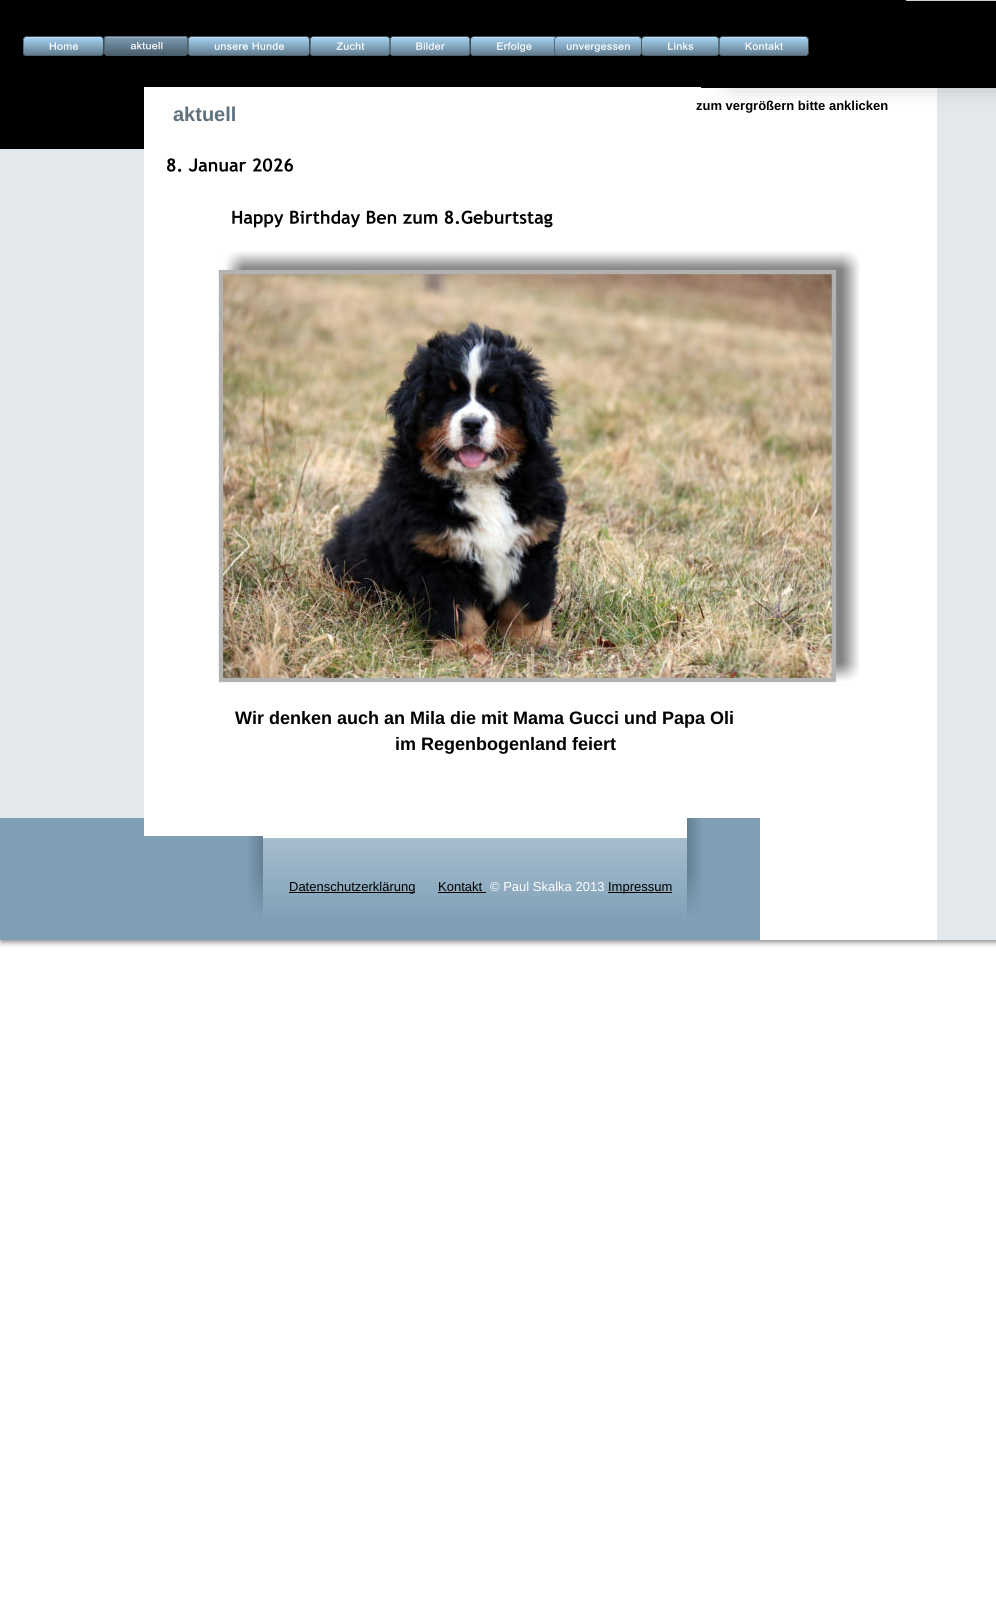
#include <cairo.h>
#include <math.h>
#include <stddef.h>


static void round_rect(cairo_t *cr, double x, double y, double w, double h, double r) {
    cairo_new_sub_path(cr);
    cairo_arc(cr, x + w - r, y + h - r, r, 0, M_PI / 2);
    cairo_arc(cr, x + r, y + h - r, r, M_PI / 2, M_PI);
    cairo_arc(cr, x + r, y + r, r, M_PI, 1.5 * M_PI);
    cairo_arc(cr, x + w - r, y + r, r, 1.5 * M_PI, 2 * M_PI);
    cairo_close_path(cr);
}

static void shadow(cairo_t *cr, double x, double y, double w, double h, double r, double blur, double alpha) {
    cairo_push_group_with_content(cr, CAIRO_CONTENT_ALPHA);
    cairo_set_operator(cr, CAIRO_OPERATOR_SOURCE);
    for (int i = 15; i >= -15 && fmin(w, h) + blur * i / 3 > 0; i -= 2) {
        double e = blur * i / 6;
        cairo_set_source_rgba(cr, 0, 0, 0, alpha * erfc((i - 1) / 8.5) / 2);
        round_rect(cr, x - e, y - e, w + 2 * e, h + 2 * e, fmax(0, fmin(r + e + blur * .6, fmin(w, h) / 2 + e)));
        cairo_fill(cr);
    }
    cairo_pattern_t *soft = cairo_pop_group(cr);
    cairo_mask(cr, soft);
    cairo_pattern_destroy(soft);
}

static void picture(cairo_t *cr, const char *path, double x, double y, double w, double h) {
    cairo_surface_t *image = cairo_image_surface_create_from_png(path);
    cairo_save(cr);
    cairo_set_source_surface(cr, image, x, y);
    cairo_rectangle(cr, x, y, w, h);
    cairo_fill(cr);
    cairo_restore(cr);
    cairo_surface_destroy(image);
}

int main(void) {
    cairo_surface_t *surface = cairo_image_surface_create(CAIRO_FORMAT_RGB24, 996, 1604);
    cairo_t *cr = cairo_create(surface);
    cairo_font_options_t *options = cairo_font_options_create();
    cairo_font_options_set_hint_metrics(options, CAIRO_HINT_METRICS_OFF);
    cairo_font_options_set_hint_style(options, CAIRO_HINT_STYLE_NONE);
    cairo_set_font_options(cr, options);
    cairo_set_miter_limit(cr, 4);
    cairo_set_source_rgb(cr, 1, 1, 1);
    cairo_paint(cr);
    cairo_set_source_rgb(cr, 0, 0, 0);
    shadow(cr, 1, 2, 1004, 940, 0, 3, 0.49);
    cairo_set_source_rgb(cr, 0.89, 0.91, 0.922);
    cairo_rectangle(cr, 0, 0, 996, 940);
    cairo_fill(cr);
    picture(cr, "img1.png", 0, 26, 701, 123);
    picture(cr, "img2.png", 295, 87, 642, 853);
    picture(cr, "img3.png", 0, 818, 760, 122);
    cairo_set_source_rgb(cr, 0, 0, 0);
    shadow(cr, 731, 0, 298, 87, 0, 11, 0.2);
    cairo_set_source_rgb(cr, 0, 0, 0);
    cairo_rectangle(cr, 701, 1, 295, 87);
    cairo_fill(cr);
    cairo_rectangle(cr, 0, 0, 906, 26);
    cairo_fill(cr);
    picture(cr, "img4.png", 23, 36, 81, 20);
    picture(cr, "img5.png", 104, 36, 84, 20);
    picture(cr, "img6.png", 104, 36, 84, 20);
    picture(cr, "img7.png", 188, 36, 122, 20);
    picture(cr, "img8.png", 310, 36, 80, 20);
    picture(cr, "img9.png", 390, 36, 80, 20);
    picture(cr, "img10.png", 470, 36, 87, 20);
    picture(cr, "img12.png", 641, 36, 78, 20);
    picture(cr, "img11.png", 554, 36, 88, 20);
    picture(cr, "img13.png", 719, 36, 90, 20);
    cairo_set_source_rgb(cr, 1, 1, 1);
    cairo_rectangle(cr, 144, 87, 151, 749);
    cairo_fill(cr);
    cairo_select_font_face(cr, "Liberation Sans", CAIRO_FONT_SLANT_NORMAL, CAIRO_FONT_WEIGHT_BOLD);
    cairo_set_font_size(cr, 13);
    cairo_set_source_rgb(cr, 0, 0, 0);
    cairo_move_to(cr, 696, 110);
    cairo_show_text(cr, "zum vergrößern bitte anklicken");
    cairo_set_font_size(cr, 20);
    cairo_set_source_rgb(cr, 0.365, 0.443, 0.494);
    cairo_move_to(cr, 173, 121);
    cairo_show_text(cr, "aktuell");
    picture(cr, "img14.png", 167, 158, 386, 70);
    picture(cr, "img15.png", 218, 251, 642, 435);
    cairo_set_font_size(cr, 18);
    cairo_set_source_rgb(cr, 0, 0, 0);
    cairo_move_to(cr, 235, 724);
    cairo_show_text(cr, "Wir denken auch an Mila die mit Mama Gucci und Papa Oli");
    cairo_move_to(cr, 395, 750);
    cairo_show_text(cr, "im Regenbogenland feiert");
    cairo_rectangle(cr, 289, 892, 126, 1);
    cairo_fill(cr);
    cairo_select_font_face(cr, "Liberation Sans", CAIRO_FONT_SLANT_NORMAL, CAIRO_FONT_WEIGHT_NORMAL);
    cairo_set_font_size(cr, 13);
    cairo_move_to(cr, 289, 891);
    cairo_show_text(cr, "Datenschutzerklärung");
    cairo_move_to(cr, 438, 891);
    cairo_show_text(cr, "Kontakt");
    cairo_rectangle(cr, 438, 892, 48, 1);
    cairo_fill(cr);
    cairo_set_source_rgb(cr, 1, 1, 1);
    cairo_move_to(cr, 490, 891);
    cairo_show_text(cr, "© Paul Skalka 2013");
    cairo_set_source_rgb(cr, 0, 0, 0);
    cairo_rectangle(cr, 608, 892, 64, 1);
    cairo_fill(cr);
    cairo_move_to(cr, 608, 891);
    cairo_show_text(cr, "Impressum");
    cairo_surface_write_to_png(surface, "page.png");
    cairo_font_options_destroy(options);
    cairo_destroy(cr);
    cairo_surface_destroy(surface);
    return 0;
}
